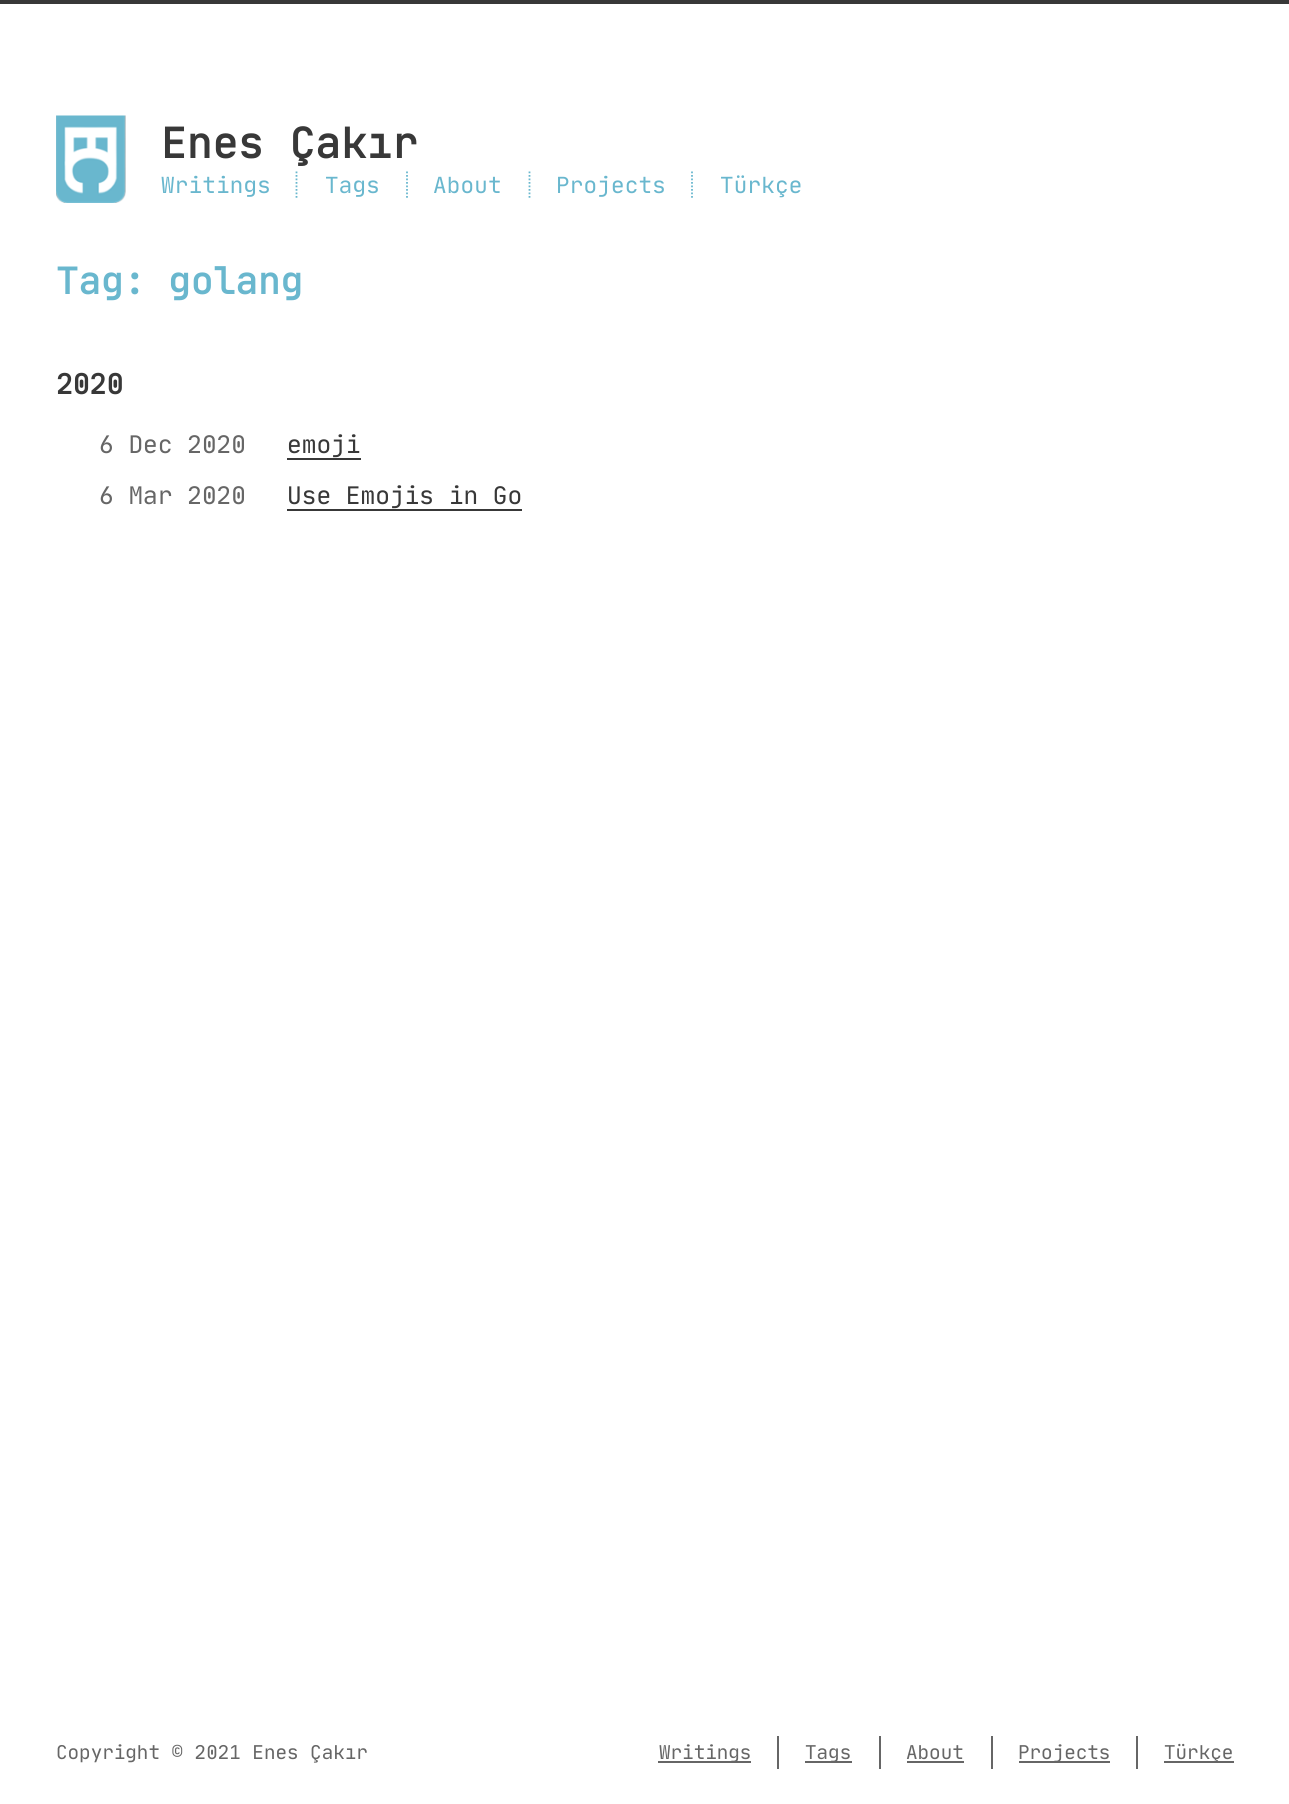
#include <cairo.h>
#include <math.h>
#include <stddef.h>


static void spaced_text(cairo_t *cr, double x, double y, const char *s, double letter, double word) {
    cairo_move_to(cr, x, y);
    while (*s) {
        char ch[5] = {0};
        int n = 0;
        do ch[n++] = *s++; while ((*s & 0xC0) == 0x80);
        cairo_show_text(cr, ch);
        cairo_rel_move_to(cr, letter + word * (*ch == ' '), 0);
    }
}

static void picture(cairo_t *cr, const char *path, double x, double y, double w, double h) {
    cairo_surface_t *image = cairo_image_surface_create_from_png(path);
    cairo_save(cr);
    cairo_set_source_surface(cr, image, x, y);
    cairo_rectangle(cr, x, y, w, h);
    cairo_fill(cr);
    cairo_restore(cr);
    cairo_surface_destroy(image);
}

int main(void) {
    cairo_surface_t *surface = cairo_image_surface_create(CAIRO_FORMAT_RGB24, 1289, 1804);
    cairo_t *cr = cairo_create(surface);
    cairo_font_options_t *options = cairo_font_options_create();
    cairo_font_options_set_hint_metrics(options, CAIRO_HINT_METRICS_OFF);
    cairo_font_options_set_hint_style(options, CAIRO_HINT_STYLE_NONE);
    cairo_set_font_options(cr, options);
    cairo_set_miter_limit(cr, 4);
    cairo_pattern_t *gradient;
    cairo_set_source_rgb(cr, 1, 1, 1);
    cairo_paint(cr);
    cairo_set_source_rgb(cr, 0.22, 0.22, 0.22);
    cairo_rectangle(cr, 0, 0, 1289, 4);
    cairo_fill(cr);
    picture(cr, "img1.png", 56, 115, 70, 88);
    cairo_select_font_face(cr, "JetBrains Mono", CAIRO_FONT_SLANT_NORMAL, CAIRO_FONT_WEIGHT_BOLD);
    cairo_set_font_size(cr, 42);
    spaced_text(cr, 161, 158, "Enes Çakır", 0.5, 0);
    cairo_new_path(cr);
    cairo_move_to(cr, 296.5, 171.5);
    cairo_line_to(cr, 296.5, 198);
    cairo_set_source_rgb(cr, 0.412, 0.718, 0.808);
    cairo_set_line_width(cr, 1.8);
    cairo_set_dash(cr, (double[]){1.75, 1.75}, 2, 0);
    cairo_stroke(cr);
    cairo_select_font_face(cr, "JetBrains Mono", CAIRO_FONT_SLANT_NORMAL, CAIRO_FONT_WEIGHT_NORMAL);
    cairo_set_font_size(cr, 22.5);
    spaced_text(cr, 161, 193, "Writings", 0.25, 0);
    cairo_new_path(cr);
    cairo_move_to(cr, 407, 171.5);
    cairo_line_to(cr, 407, 198);
    cairo_stroke(cr);
    spaced_text(cr, 325, 193, "Tags", 0.25, 0);
    cairo_new_path(cr);
    cairo_move_to(cr, 529.5, 171.5);
    cairo_line_to(cr, 529.5, 198);
    cairo_stroke(cr);
    spaced_text(cr, 433, 193, "About", 0.25, 0);
    cairo_new_path(cr);
    cairo_move_to(cr, 692, 171.5);
    cairo_line_to(cr, 692, 198);
    cairo_stroke(cr);
    spaced_text(cr, 556, 193, "Projects", 0.25, 0);
    spaced_text(cr, 720, 193, "Türkçe", 0.25, 0);
    cairo_select_font_face(cr, "JetBrains Mono", CAIRO_FONT_SLANT_NORMAL, CAIRO_FONT_WEIGHT_BOLD);
    cairo_set_font_size(cr, 36.75);
    spaced_text(cr, 56, 294, "Tag: golang", 0.4, 0);
    cairo_set_font_size(cr, 28);
    cairo_set_source_rgb(cr, 0.22, 0.22, 0.22);
    cairo_move_to(cr, 56, 394);
    cairo_show_text(cr, "2020");
    cairo_select_font_face(cr, "JetBrains Mono", CAIRO_FONT_SLANT_NORMAL, CAIRO_FONT_WEIGHT_NORMAL);
    cairo_set_font_size(cr, 24.5);
    cairo_set_source_rgb(cr, 0.4, 0.4, 0.4);
    cairo_move_to(cr, 99, 453);
    cairo_show_text(cr, "6 Dec 2020");
    cairo_set_source_rgb(cr, 0.22, 0.22, 0.22);
    cairo_move_to(cr, 287, 453);
    cairo_show_text(cr, "emoji");
    gradient = cairo_pattern_create_linear(324, 450, 324, 460);
    cairo_pattern_add_color_stop_rgba(gradient, 0, 1, 1, 1, 1);
    cairo_pattern_add_color_stop_rgba(gradient, 0.83, 1, 1, 1, 1);
    cairo_pattern_add_color_stop_rgba(gradient, 0.83, 0.22, 0.22, 0.22, 1);
    cairo_pattern_add_color_stop_rgba(gradient, 1, 0.22, 0.22, 0.22, 1);
    cairo_set_source(cr, gradient);
    cairo_pattern_destroy(gradient);
    cairo_rectangle(cr, 287, 458, 74, 2);
    cairo_fill(cr);
    cairo_set_source_rgb(cr, 0.4, 0.4, 0.4);
    cairo_move_to(cr, 99, 504);
    cairo_show_text(cr, "6 Mar 2020");
    cairo_set_source_rgb(cr, 0.22, 0.22, 0.22);
    cairo_move_to(cr, 287, 504);
    cairo_show_text(cr, "Use Emojis in Go");
    gradient = cairo_pattern_create_linear(404, 501, 404, 511);
    cairo_pattern_add_color_stop_rgba(gradient, 0, 1, 1, 1, 1);
    cairo_pattern_add_color_stop_rgba(gradient, 0.83, 1, 1, 1, 1);
    cairo_pattern_add_color_stop_rgba(gradient, 0.83, 0.22, 0.22, 0.22, 1);
    cairo_pattern_add_color_stop_rgba(gradient, 1, 0.22, 0.22, 0.22, 1);
    cairo_set_source(cr, gradient);
    cairo_pattern_destroy(gradient);
    cairo_rectangle(cr, 287, 509, 235, 2);
    cairo_fill(cr);
    cairo_set_font_size(cr, 19.25);
    cairo_set_source_rgb(cr, 0.4, 0.4, 0.4);
    cairo_move_to(cr, 56, 1759);
    cairo_show_text(cr, "Copyright © 2021 Enes Çakır");
    cairo_rectangle(cr, 777, 1736, 2, 33);
    cairo_fill(cr);
    cairo_rectangle(cr, 658, 1761, 93, 2);
    cairo_fill(cr);
    cairo_move_to(cr, 659, 1759);
    cairo_show_text(cr, "Writings");
    cairo_rectangle(cr, 879, 1736, 2, 33);
    cairo_fill(cr);
    cairo_rectangle(cr, 805, 1761, 47, 2);
    cairo_fill(cr);
    cairo_move_to(cr, 805, 1759);
    cairo_show_text(cr, "Tags");
    cairo_rectangle(cr, 991, 1736, 2, 33);
    cairo_fill(cr);
    cairo_move_to(cr, 906, 1759);
    cairo_show_text(cr, "About");
    cairo_rectangle(cr, 907, 1761, 57, 2);
    cairo_fill(cr);
    cairo_rectangle(cr, 1136, 1736, 2, 33);
    cairo_fill(cr);
    cairo_rectangle(cr, 1019, 1761, 91, 2);
    cairo_fill(cr);
    cairo_move_to(cr, 1018, 1759);
    cairo_show_text(cr, "Projects");
    cairo_rectangle(cr, 1164, 1761, 70, 2);
    cairo_fill(cr);
    cairo_move_to(cr, 1164, 1759);
    cairo_show_text(cr, "Türkçe");
    cairo_surface_write_to_png(surface, "page.png");
    cairo_font_options_destroy(options);
    cairo_destroy(cr);
    cairo_surface_destroy(surface);
    return 0;
}
